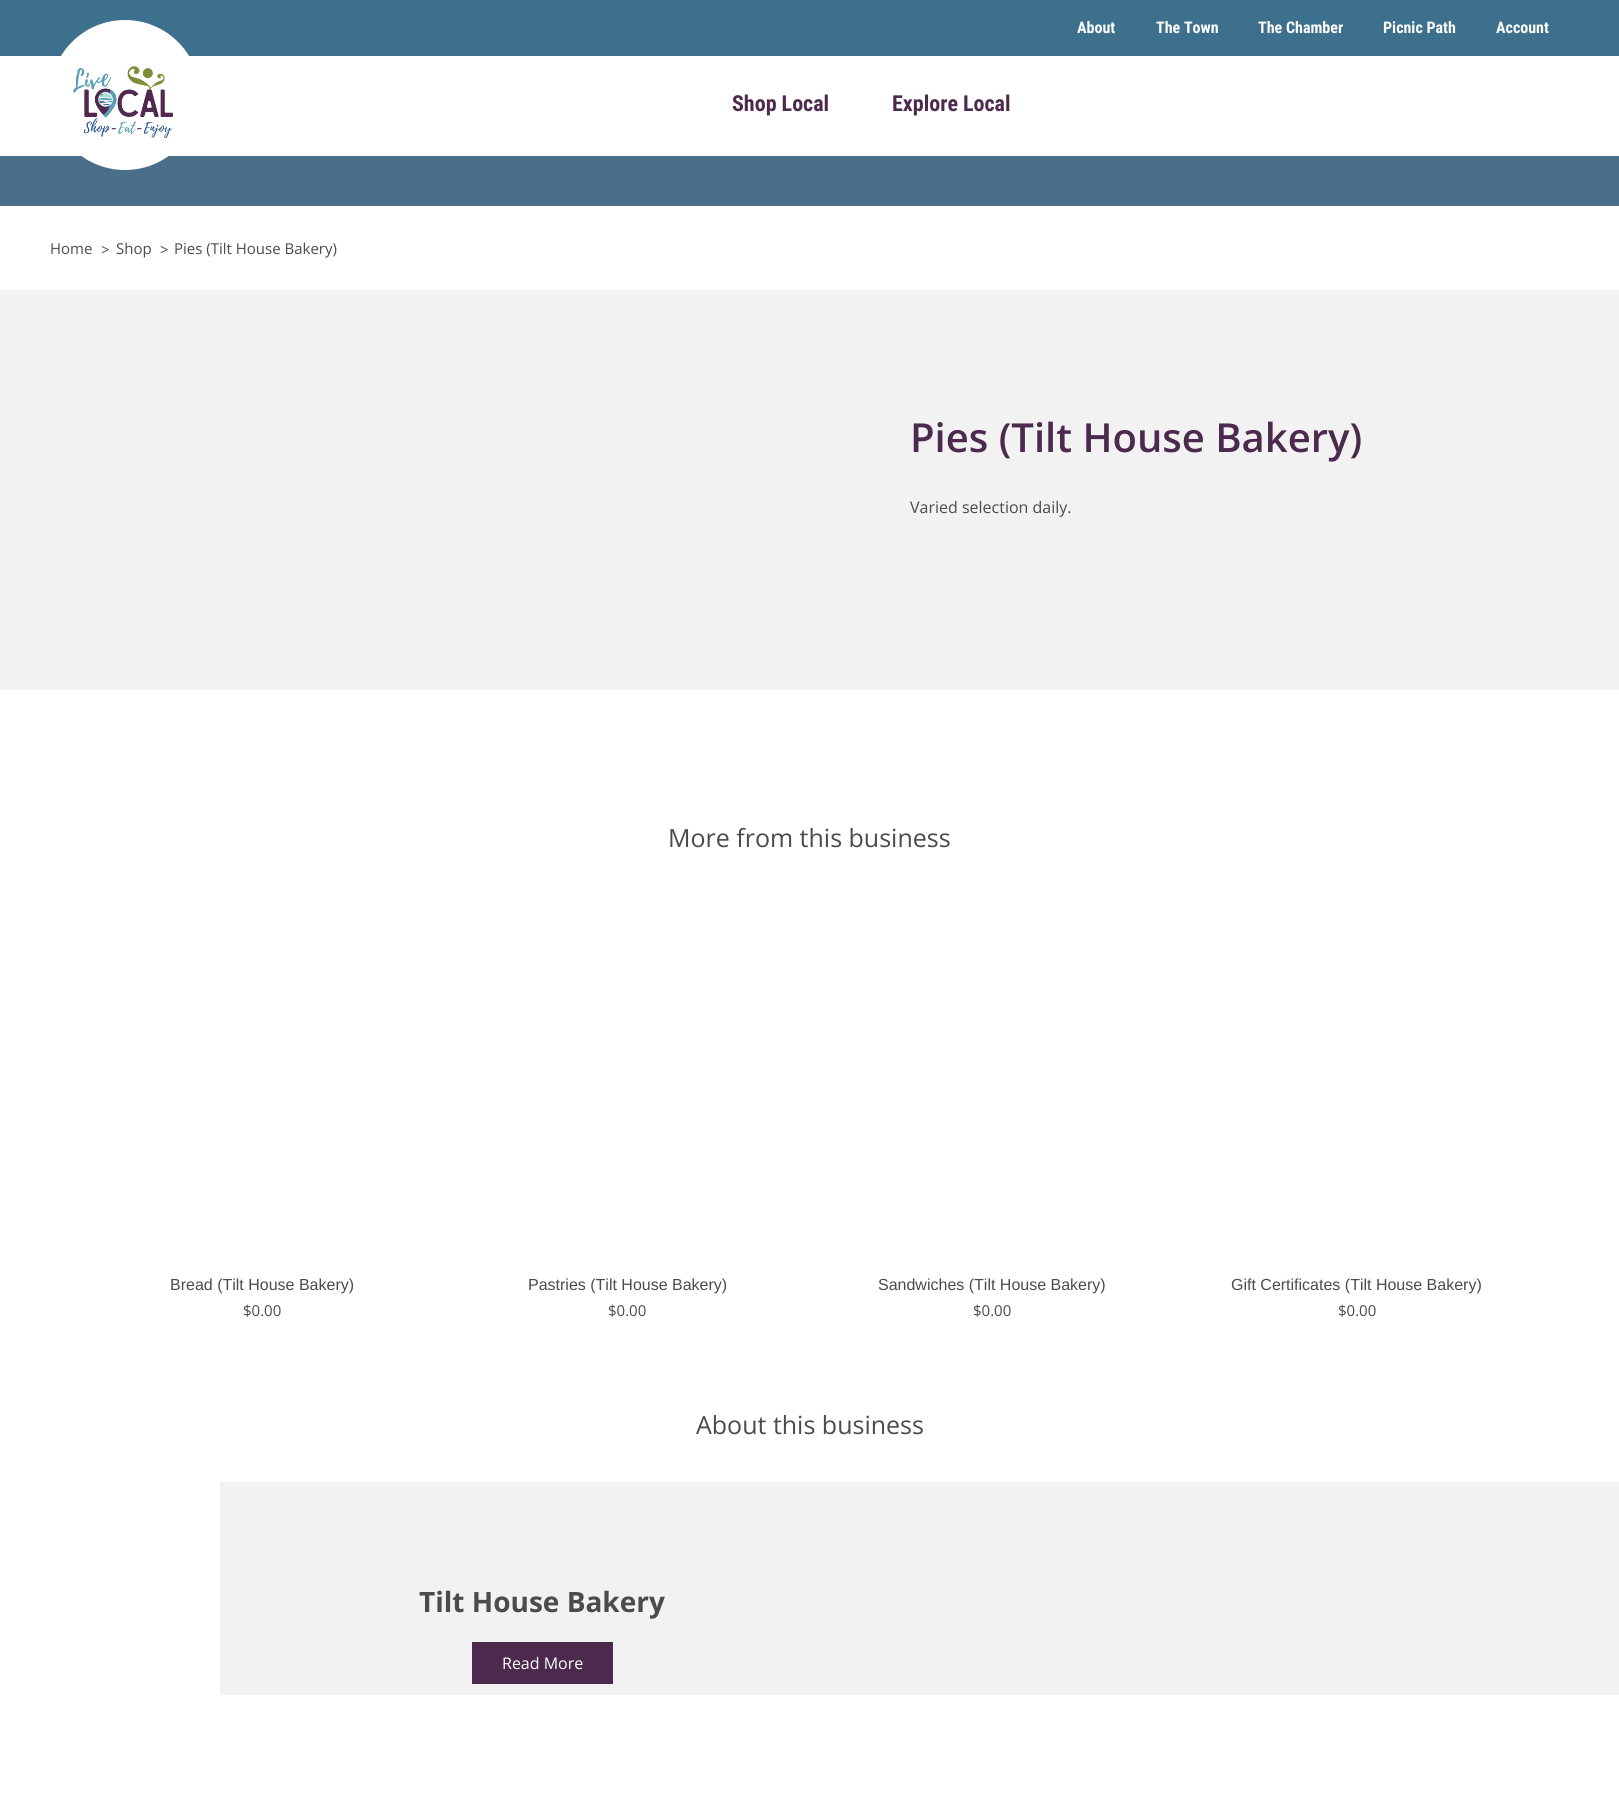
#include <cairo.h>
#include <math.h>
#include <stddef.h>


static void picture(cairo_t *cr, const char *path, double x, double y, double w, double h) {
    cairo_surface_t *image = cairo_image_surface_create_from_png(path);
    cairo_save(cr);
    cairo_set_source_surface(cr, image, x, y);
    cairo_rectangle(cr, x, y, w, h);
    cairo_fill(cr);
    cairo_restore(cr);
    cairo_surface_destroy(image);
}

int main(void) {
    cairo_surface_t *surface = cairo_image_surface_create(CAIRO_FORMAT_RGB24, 1619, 1813);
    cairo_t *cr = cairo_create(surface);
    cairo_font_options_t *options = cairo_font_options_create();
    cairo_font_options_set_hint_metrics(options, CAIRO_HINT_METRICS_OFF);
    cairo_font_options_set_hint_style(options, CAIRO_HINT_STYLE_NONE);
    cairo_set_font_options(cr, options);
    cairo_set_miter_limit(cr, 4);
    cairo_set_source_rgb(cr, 1, 1, 1);
    cairo_paint(cr);
    cairo_set_source_rgb(cr, 0.239, 0.439, 0.553);
    cairo_rectangle(cr, 0, 0, 1619, 56);
    cairo_fill(cr);
    cairo_select_font_face(cr, "Roboto Condensed", CAIRO_FONT_SLANT_NORMAL, CAIRO_FONT_WEIGHT_BOLD);
    cairo_set_font_size(cr, 16);
    cairo_set_source_rgb(cr, 1, 1, 1);
    cairo_move_to(cr, 1077, 33);
    cairo_show_text(cr, "About");
    cairo_move_to(cr, 1156, 33);
    cairo_show_text(cr, "The Town");
    cairo_move_to(cr, 1258, 33);
    cairo_show_text(cr, "The Chamber");
    cairo_move_to(cr, 1383, 33);
    cairo_show_text(cr, "Picnic Path");
    cairo_move_to(cr, 1496, 33);
    cairo_show_text(cr, "Account");
    cairo_set_source_rgb(cr, 0.29, 0.435, 0.541);
    cairo_rectangle(cr, 0, 156, 1619, 50);
    cairo_fill(cr);
    cairo_set_source_rgb(cr, 1, 1, 1);
    cairo_arc(cr, 125, 95, 75, 0, 2 * M_PI);
    cairo_fill(cr);
    picture(cr, "img1.png", 73, 66, 100, 72);
    cairo_set_font_size(cr, 22);
    cairo_set_source_rgb(cr, 0.298, 0.165, 0.302);
    cairo_move_to(cr, 732, 111);
    cairo_show_text(cr, "Shop Local");
    cairo_move_to(cr, 892, 111);
    cairo_show_text(cr, "Explore Local");
    cairo_select_font_face(cr, "Open Sans", CAIRO_FONT_SLANT_NORMAL, CAIRO_FONT_WEIGHT_NORMAL);
    cairo_set_font_size(cr, 15);
    cairo_set_source_rgb(cr, 0.294, 0.294, 0.294);
    cairo_move_to(cr, 50, 254);
    cairo_show_text(cr, "Home");
    cairo_move_to(cr, 101, 255);
    cairo_show_text(cr, ">");
    cairo_move_to(cr, 116, 254);
    cairo_show_text(cr, "Shop");
    cairo_move_to(cr, 160, 255);
    cairo_show_text(cr, ">");
    cairo_move_to(cr, 174, 254);
    cairo_show_text(cr, "Pies (Tilt House Bakery)");
    cairo_set_source_rgb(cr, 0.949, 0.949, 0.949);
    cairo_rectangle(cr, 0, 290, 1619, 400);
    cairo_fill(cr);
    cairo_select_font_face(cr, "Open Sans SemiBold", CAIRO_FONT_SLANT_NORMAL, CAIRO_FONT_WEIGHT_NORMAL);
    cairo_set_font_size(cr, 40);
    cairo_set_source_rgb(cr, 0.298, 0.165, 0.302);
    cairo_move_to(cr, 910, 452);
    cairo_show_text(cr, "Pies (Tilt House Bakery)");
    cairo_select_font_face(cr, "Open Sans", CAIRO_FONT_SLANT_NORMAL, CAIRO_FONT_WEIGHT_NORMAL);
    cairo_set_font_size(cr, 16);
    cairo_set_source_rgb(cr, 0.294, 0.294, 0.294);
    cairo_move_to(cr, 910, 513);
    cairo_show_text(cr, "Varied selection daily.");
    cairo_set_font_size(cr, 25);
    cairo_move_to(cr, 668, 847);
    cairo_show_text(cr, "More from this business");
    cairo_select_font_face(cr, "Liberation Sans", CAIRO_FONT_SLANT_NORMAL, CAIRO_FONT_WEIGHT_NORMAL);
    cairo_set_font_size(cr, 16);
    cairo_move_to(cr, 170, 1290);
    cairo_show_text(cr, "Bread (Tilt House Bakery)");
    cairo_select_font_face(cr, "Open Sans", CAIRO_FONT_SLANT_NORMAL, CAIRO_FONT_WEIGHT_NORMAL);
    cairo_set_font_size(cr, 15);
    cairo_move_to(cr, 243, 1316);
    cairo_show_text(cr, "$0.00");
    cairo_select_font_face(cr, "Liberation Sans", CAIRO_FONT_SLANT_NORMAL, CAIRO_FONT_WEIGHT_NORMAL);
    cairo_set_font_size(cr, 16);
    cairo_move_to(cr, 528, 1290);
    cairo_show_text(cr, "Pastries (Tilt House Bakery)");
    cairo_select_font_face(cr, "Open Sans", CAIRO_FONT_SLANT_NORMAL, CAIRO_FONT_WEIGHT_NORMAL);
    cairo_set_font_size(cr, 15);
    cairo_move_to(cr, 608, 1316);
    cairo_show_text(cr, "$0.00");
    cairo_select_font_face(cr, "Liberation Sans", CAIRO_FONT_SLANT_NORMAL, CAIRO_FONT_WEIGHT_NORMAL);
    cairo_set_font_size(cr, 16);
    cairo_move_to(cr, 878, 1290);
    cairo_show_text(cr, "Sandwiches (Tilt House Bakery)");
    cairo_select_font_face(cr, "Open Sans", CAIRO_FONT_SLANT_NORMAL, CAIRO_FONT_WEIGHT_NORMAL);
    cairo_set_font_size(cr, 15);
    cairo_move_to(cr, 973, 1316);
    cairo_show_text(cr, "$0.00");
    cairo_select_font_face(cr, "Liberation Sans", CAIRO_FONT_SLANT_NORMAL, CAIRO_FONT_WEIGHT_NORMAL);
    cairo_set_font_size(cr, 16);
    cairo_move_to(cr, 1231, 1290);
    cairo_show_text(cr, "Gift Certificates (Tilt House Bakery)");
    cairo_select_font_face(cr, "Open Sans", CAIRO_FONT_SLANT_NORMAL, CAIRO_FONT_WEIGHT_NORMAL);
    cairo_set_font_size(cr, 15);
    cairo_move_to(cr, 1338, 1316);
    cairo_show_text(cr, "$0.00");
    cairo_set_font_size(cr, 25);
    cairo_move_to(cr, 696, 1434);
    cairo_show_text(cr, "About this business");
    cairo_set_source_rgb(cr, 0.949, 0.949, 0.949);
    cairo_rectangle(cr, 220, 1482, 1399, 213);
    cairo_fill(cr);
    cairo_select_font_face(cr, "Open Sans", CAIRO_FONT_SLANT_NORMAL, CAIRO_FONT_WEIGHT_BOLD);
    cairo_set_font_size(cr, 28);
    cairo_set_source_rgb(cr, 0.294, 0.294, 0.294);
    cairo_move_to(cr, 419, 1612);
    cairo_show_text(cr, "Tilt House Bakery");
    cairo_set_source_rgb(cr, 0.298, 0.165, 0.302);
    cairo_rectangle(cr, 472, 1642, 141, 42);
    cairo_fill(cr);
    cairo_select_font_face(cr, "Open Sans", CAIRO_FONT_SLANT_NORMAL, CAIRO_FONT_WEIGHT_NORMAL);
    cairo_set_font_size(cr, 16);
    cairo_set_source_rgb(cr, 1, 1, 1);
    cairo_move_to(cr, 502, 1669);
    cairo_show_text(cr, "Read More");
    cairo_surface_write_to_png(surface, "page.png");
    cairo_font_options_destroy(options);
    cairo_destroy(cr);
    cairo_surface_destroy(surface);
    return 0;
}
